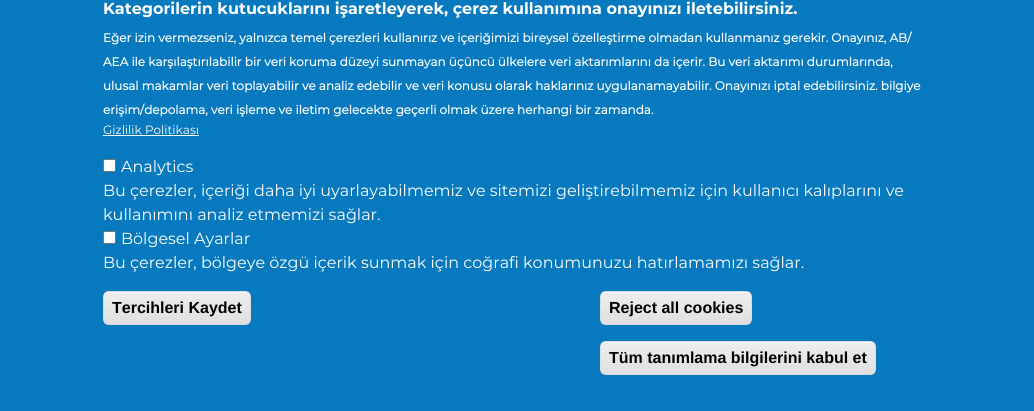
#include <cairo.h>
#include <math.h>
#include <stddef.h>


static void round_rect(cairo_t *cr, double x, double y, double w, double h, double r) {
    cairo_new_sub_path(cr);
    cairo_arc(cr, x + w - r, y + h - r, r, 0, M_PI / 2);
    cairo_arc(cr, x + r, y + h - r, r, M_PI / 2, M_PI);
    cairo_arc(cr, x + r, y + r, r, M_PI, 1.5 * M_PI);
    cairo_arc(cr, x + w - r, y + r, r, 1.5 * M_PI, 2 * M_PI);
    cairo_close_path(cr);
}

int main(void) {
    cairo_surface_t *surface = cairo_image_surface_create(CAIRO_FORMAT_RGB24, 1034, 411);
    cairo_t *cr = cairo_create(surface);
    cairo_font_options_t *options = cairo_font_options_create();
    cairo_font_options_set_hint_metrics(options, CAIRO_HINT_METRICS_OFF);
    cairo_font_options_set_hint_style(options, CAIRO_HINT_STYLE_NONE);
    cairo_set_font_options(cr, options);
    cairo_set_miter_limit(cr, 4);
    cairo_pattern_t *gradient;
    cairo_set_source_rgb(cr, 0.027, 0.475, 0.749);
    cairo_paint(cr);
    cairo_select_font_face(cr, "Montserrat", CAIRO_FONT_SLANT_NORMAL, CAIRO_FONT_WEIGHT_BOLD);
    cairo_set_font_size(cr, 16);
    cairo_set_source_rgb(cr, 1, 1, 1);
    cairo_move_to(cr, 103, 14);
    cairo_show_text(cr, "Kategorilerin kutucuklarını işaretleyerek, çerez kullanımına onayınızı iletebilirsiniz.");
    cairo_select_font_face(cr, "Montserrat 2", CAIRO_FONT_SLANT_NORMAL, CAIRO_FONT_WEIGHT_BOLD);
    cairo_set_font_size(cr, 12);
    cairo_move_to(cr, 103, 42);
    cairo_show_text(cr, "Eğer izin vermezseniz, yalnızca temel çerezleri kullanırız ve içeriğimizi bireysel özelleştirme olmadan kullanmanız gerekir. Onayınız, AB/");
    cairo_move_to(cr, 103, 66);
    cairo_show_text(cr, "AEA ile karşılaştırılabilir bir veri koruma düzeyi sunmayan üçüncü ülkelere veri aktarımlarını da içerir. Bu veri aktarımı durumlarında,");
    cairo_move_to(cr, 103, 90);
    cairo_show_text(cr, "ulusal makamlar veri toplayabilir ve analiz edebilir ve veri konusu olarak haklarınız uygulanamayabilir. Onayınızı iptal edebilirsiniz. bilgiye");
    cairo_move_to(cr, 103, 114);
    cairo_show_text(cr, "erişim/depolama, veri işleme ve iletim gelecekte geçerli olmak üzere herhangi bir zamanda.");
    cairo_select_font_face(cr, "Montserrat", CAIRO_FONT_SLANT_NORMAL, CAIRO_FONT_WEIGHT_NORMAL);
    cairo_move_to(cr, 103, 134);
    cairo_show_text(cr, "Gizlilik Politikası");
    cairo_rectangle(cr, 103, 135, 96, 1);
    cairo_fill(cr);
    round_rect(cr, 103.5, 159.5, 12, 12, 1.5);
    cairo_fill_preserve(cr);
    cairo_set_source_rgb(cr, 0.463, 0.463, 0.463);
    cairo_set_line_width(cr, 1);
    cairo_stroke(cr);
    cairo_set_font_size(cr, 16);
    cairo_set_source_rgb(cr, 1, 1, 1);
    cairo_move_to(cr, 121, 172);
    cairo_show_text(cr, "Analytics");
    cairo_move_to(cr, 103, 196);
    cairo_show_text(cr, "Bu çerezler, içeriği daha iyi uyarlayabilmemiz ve sitemizi geliştirebilmemiz için kullanıcı kalıplarını ve");
    cairo_move_to(cr, 103, 220);
    cairo_show_text(cr, "kullanımını analiz etmemizi sağlar.");
    round_rect(cr, 103.5, 231.5, 12, 12, 1.5);
    cairo_fill_preserve(cr);
    cairo_set_source_rgb(cr, 0.463, 0.463, 0.463);
    cairo_stroke(cr);
    cairo_set_source_rgb(cr, 1, 1, 1);
    cairo_move_to(cr, 121, 244);
    cairo_show_text(cr, "Bölgesel Ayarlar");
    cairo_move_to(cr, 103, 268);
    cairo_show_text(cr, "Bu çerezler, bölgeye özgü içerik sunmak için coğrafi konumunuzu hatırlamamızı sağlar.");
    cairo_save(cr);
    round_rect(cr, 103, 291, 148, 34, 6);
    cairo_clip(cr);
    gradient = cairo_pattern_create_linear(177, 292, 177, 324);
    cairo_pattern_add_color_stop_rgba(gradient, 0.05, 0.929, 0.929, 0.929, 1);
    cairo_pattern_add_color_stop_rgba(gradient, 1, 0.875, 0.875, 0.875, 1);
    cairo_set_source(cr, gradient);
    cairo_pattern_destroy(gradient);
    cairo_rectangle(cr, 104, 292, 146, 32);
    cairo_fill(cr);
    cairo_restore(cr);
    cairo_new_path(cr);
    cairo_move_to(cr, 109, 293);
    cairo_line_to(cr, 245, 293);
    cairo_curve_to(cr, 248, 293, 250, 295, 250, 298);
    cairo_line_to(cr, 250, 297);
    cairo_curve_to(cr, 250, 294, 248, 292, 245, 292);
    cairo_line_to(cr, 109, 292);
    cairo_curve_to(cr, 106, 292, 104, 294, 104, 297);
    cairo_line_to(cr, 104, 298);
    cairo_curve_to(cr, 104, 295, 106, 293, 109, 293);
    cairo_close_path(cr);
    cairo_fill(cr);
    round_rect(cr, 103.5, 291.5, 147, 33, 5.5);
    cairo_set_source_rgb(cr, 0.863, 0.863, 0.863);
    cairo_stroke(cr);
    cairo_select_font_face(cr, "Liberation Sans", CAIRO_FONT_SLANT_NORMAL, CAIRO_FONT_WEIGHT_BOLD);
    cairo_set_source_rgb(cr, 0, 0, 0);
    cairo_move_to(cr, 112, 313);
    cairo_show_text(cr, "Tercihleri Kaydet");
    cairo_save(cr);
    round_rect(cr, 600, 291, 152, 34, 6);
    cairo_clip(cr);
    gradient = cairo_pattern_create_linear(676, 292, 676, 324);
    cairo_pattern_add_color_stop_rgba(gradient, 0.05, 0.929, 0.929, 0.929, 1);
    cairo_pattern_add_color_stop_rgba(gradient, 1, 0.875, 0.875, 0.875, 1);
    cairo_set_source(cr, gradient);
    cairo_pattern_destroy(gradient);
    cairo_rectangle(cr, 601, 292, 150, 32);
    cairo_fill(cr);
    cairo_restore(cr);
    cairo_set_source_rgb(cr, 1, 1, 1);
    cairo_new_path(cr);
    cairo_move_to(cr, 606, 293);
    cairo_line_to(cr, 746, 293);
    cairo_curve_to(cr, 749, 293, 751, 295, 751, 298);
    cairo_line_to(cr, 751, 297);
    cairo_curve_to(cr, 751, 294, 749, 292, 746, 292);
    cairo_line_to(cr, 606, 292);
    cairo_curve_to(cr, 603, 292, 601, 294, 601, 297);
    cairo_line_to(cr, 601, 298);
    cairo_curve_to(cr, 601, 295, 603, 293, 606, 293);
    cairo_close_path(cr);
    cairo_fill(cr);
    round_rect(cr, 600.5, 291.5, 151, 33, 5.5);
    cairo_set_source_rgb(cr, 0.863, 0.863, 0.863);
    cairo_stroke(cr);
    cairo_set_source_rgb(cr, 0, 0, 0);
    cairo_move_to(cr, 609, 313);
    cairo_show_text(cr, "Reject all cookies");
    cairo_save(cr);
    round_rect(cr, 600, 341, 276, 34, 6);
    cairo_clip(cr);
    gradient = cairo_pattern_create_linear(738, 342, 738, 374);
    cairo_pattern_add_color_stop_rgba(gradient, 0.05, 0.929, 0.929, 0.929, 1);
    cairo_pattern_add_color_stop_rgba(gradient, 1, 0.875, 0.875, 0.875, 1);
    cairo_set_source(cr, gradient);
    cairo_pattern_destroy(gradient);
    cairo_rectangle(cr, 601, 342, 274, 32);
    cairo_fill(cr);
    cairo_restore(cr);
    cairo_set_source_rgb(cr, 1, 1, 1);
    cairo_new_path(cr);
    cairo_move_to(cr, 606, 343);
    cairo_line_to(cr, 870, 343);
    cairo_curve_to(cr, 873, 343, 875, 345, 875, 348);
    cairo_curve_to(cr, 875, 345, 873, 342, 870, 342);
    cairo_line_to(cr, 606, 342);
    cairo_curve_to(cr, 603, 342, 601, 345, 601, 348);
    cairo_curve_to(cr, 601, 345, 603, 343, 606, 343);
    cairo_close_path(cr);
    cairo_fill(cr);
    round_rect(cr, 600.5, 341.5, 275, 33, 5.5);
    cairo_set_source_rgb(cr, 0.863, 0.863, 0.863);
    cairo_stroke(cr);
    cairo_set_source_rgb(cr, 0, 0, 0);
    cairo_move_to(cr, 609, 363);
    cairo_show_text(cr, "Tüm tanımlama bilgilerini kabul et");
    cairo_surface_write_to_png(surface, "page.png");
    cairo_font_options_destroy(options);
    cairo_destroy(cr);
    cairo_surface_destroy(surface);
    return 0;
}
